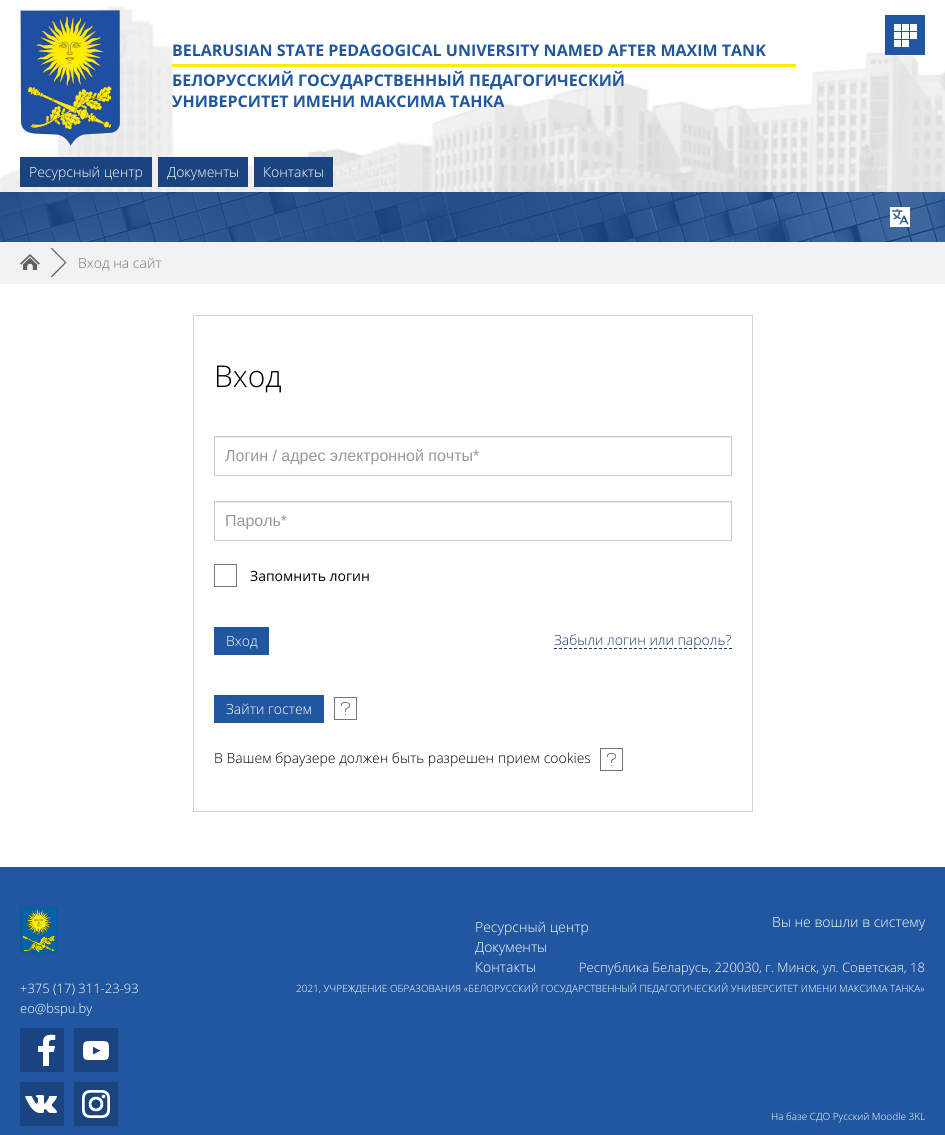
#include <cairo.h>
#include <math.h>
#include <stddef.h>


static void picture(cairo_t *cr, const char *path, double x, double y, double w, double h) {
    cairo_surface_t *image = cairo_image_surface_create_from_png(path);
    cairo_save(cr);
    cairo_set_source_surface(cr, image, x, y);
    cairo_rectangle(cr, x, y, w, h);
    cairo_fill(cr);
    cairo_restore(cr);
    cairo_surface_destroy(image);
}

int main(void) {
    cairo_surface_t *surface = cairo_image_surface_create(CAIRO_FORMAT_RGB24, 945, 1135);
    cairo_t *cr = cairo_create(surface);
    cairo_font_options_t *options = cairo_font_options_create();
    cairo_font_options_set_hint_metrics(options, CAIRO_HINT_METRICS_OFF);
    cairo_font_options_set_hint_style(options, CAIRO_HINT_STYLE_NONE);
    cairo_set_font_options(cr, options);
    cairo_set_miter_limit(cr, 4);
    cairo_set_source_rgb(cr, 1, 1, 1);
    cairo_paint(cr);
    picture(cr, "img1.png", 0, 6, 945, 186);
    cairo_set_source_rgb(cr, 0.129, 0.341, 0.631);
    cairo_rectangle(cr, 885, 15, 40, 40);
    cairo_fill(cr);
    picture(cr, "img2.png", 894, 24, 23, 23);
    picture(cr, "img3.png", 20, 10, 100, 136);
    cairo_select_font_face(cr, "Open Sans", CAIRO_FONT_SLANT_NORMAL, CAIRO_FONT_WEIGHT_BOLD);
    cairo_set_font_size(cr, 16);
    cairo_set_source_rgb(cr, 0.129, 0.341, 0.624);
    cairo_move_to(cr, 172, 56);
    cairo_show_text(cr, "BELARUSIAN STATE PEDAGOGICAL UNIVERSITY NAMED AFTER MAXIM TANK");
    cairo_set_source_rgb(cr, 1, 0.929, 0);
    cairo_rectangle(cr, 172, 64, 624, 3);
    cairo_fill(cr);
    cairo_set_source_rgb(cr, 0.129, 0.341, 0.624);
    cairo_move_to(cr, 172, 86);
    cairo_show_text(cr, "БЕЛОРУССКИЙ ГОСУДАРСТВЕННЫЙ ПЕДАГОГИЧЕСКИЙ");
    cairo_move_to(cr, 172, 107);
    cairo_show_text(cr, "УНИВЕРСИТЕТ ИМЕНИ МАКСИМА ТАНКА");
    cairo_set_source_rgb(cr, 0.098, 0.267, 0.498);
    cairo_rectangle(cr, 20, 157, 132, 30);
    cairo_fill(cr);
    cairo_select_font_face(cr, "Open Sans Light", CAIRO_FONT_SLANT_NORMAL, CAIRO_FONT_WEIGHT_NORMAL);
    cairo_set_font_size(cr, 14);
    cairo_set_source_rgb(cr, 1, 1, 1);
    cairo_move_to(cr, 29, 177);
    cairo_show_text(cr, "Ресурсный центр");
    cairo_set_source_rgb(cr, 0.098, 0.267, 0.498);
    cairo_rectangle(cr, 158, 157, 90, 30);
    cairo_fill(cr);
    cairo_set_source_rgb(cr, 1, 1, 1);
    cairo_move_to(cr, 167, 177);
    cairo_show_text(cr, "Документы");
    cairo_set_source_rgb(cr, 0.098, 0.267, 0.498);
    cairo_rectangle(cr, 254, 157, 79, 30);
    cairo_fill(cr);
    cairo_set_source_rgb(cr, 1, 1, 1);
    cairo_move_to(cr, 263, 177);
    cairo_show_text(cr, "Контакты");
    cairo_set_source_rgb(cr, 0.129, 0.341, 0.631);
    cairo_rectangle(cr, 0, 192, 945, 50);
    cairo_fill(cr);
    picture(cr, "img4.png", 0, 192, 945, 50);
    picture(cr, "img5.png", 890, 207, 20, 20);
    cairo_set_source_rgb(cr, 0.949, 0.949, 0.949);
    cairo_rectangle(cr, 0, 242, 945, 42);
    cairo_fill(cr);
    picture(cr, "img6.png", 20, 254, 20, 16);
    picture(cr, "img7.png", 51, 248, 16, 29);
    cairo_set_source_rgb(cr, 0.451, 0.451, 0.451);
    cairo_move_to(cr, 78, 268);
    cairo_show_text(cr, "Вход на сайт");
    cairo_rectangle(cr, 193.5, 315.5, 559, 496);
    cairo_set_source_rgb(cr, 0.831, 0.831, 0.831);
    cairo_set_line_width(cr, 1);
    cairo_stroke(cr);
    cairo_set_font_size(cr, 30);
    cairo_set_source_rgb(cr, 0, 0, 0);
    cairo_move_to(cr, 214, 387);
    cairo_show_text(cr, "Вход");
    cairo_set_source_rgb(cr, 0.925, 0.925, 0.925);
    cairo_rectangle(cr, 215, 437, 516, 1);
    cairo_fill(cr);
    cairo_rectangle(cr, 214.5, 436.5, 517, 39);
    cairo_set_source_rgb(cr, 0.8, 0.8, 0.8);
    cairo_stroke(cr);
    cairo_select_font_face(cr, "Liberation Sans", CAIRO_FONT_SLANT_NORMAL, CAIRO_FONT_WEIGHT_NORMAL);
    cairo_set_font_size(cr, 16);
    cairo_set_source_rgb(cr, 0.6, 0.6, 0.6);
    cairo_move_to(cr, 225, 461);
    cairo_show_text(cr, "Логин / адрес электронной почты*");
    cairo_set_source_rgb(cr, 0.925, 0.925, 0.925);
    cairo_rectangle(cr, 215, 502, 516, 1);
    cairo_fill(cr);
    cairo_rectangle(cr, 214.5, 501.5, 517, 39);
    cairo_set_source_rgb(cr, 0.8, 0.8, 0.8);
    cairo_stroke(cr);
    cairo_set_source_rgb(cr, 0.6, 0.6, 0.6);
    cairo_move_to(cr, 225, 526);
    cairo_show_text(cr, "Пароль*");
    cairo_rectangle(cr, 214.5, 564.5, 22, 22);
    cairo_set_source_rgb(cr, 0.467, 0.467, 0.467);
    cairo_stroke(cr);
    cairo_select_font_face(cr, "Open Sans", CAIRO_FONT_SLANT_NORMAL, CAIRO_FONT_WEIGHT_NORMAL);
    cairo_set_font_size(cr, 14);
    cairo_set_source_rgb(cr, 0, 0, 0);
    cairo_move_to(cr, 250, 581);
    cairo_show_text(cr, "Запомнить логин");
    cairo_set_source_rgb(cr, 0.129, 0.341, 0.631);
    cairo_rectangle(cr, 214, 627, 55, 28);
    cairo_fill(cr);
    cairo_select_font_face(cr, "Open Sans Light", CAIRO_FONT_SLANT_NORMAL, CAIRO_FONT_WEIGHT_NORMAL);
    cairo_set_source_rgb(cr, 1, 1, 1);
    cairo_move_to(cr, 226, 646);
    cairo_show_text(cr, "Вход");
    cairo_new_path(cr);
    cairo_move_to(cr, 554, 648.5);
    cairo_line_to(cr, 732, 648.5);
    cairo_set_source_rgb(cr, 0.086, 0.227, 0.412);
    cairo_set_dash(cr, (double[]){3, 2}, 2, 0);
    cairo_stroke(cr);
    cairo_move_to(cr, 554, 645);
    cairo_show_text(cr, "Забыли логин или пароль?");
    cairo_set_source_rgb(cr, 0.129, 0.341, 0.631);
    cairo_rectangle(cr, 214, 695, 110, 28);
    cairo_fill(cr);
    cairo_set_source_rgb(cr, 1, 1, 1);
    cairo_move_to(cr, 226, 714);
    cairo_show_text(cr, "Зайти гостем");
    picture(cr, "img8.png", 334, 697, 23, 23);
    cairo_set_source_rgb(cr, 0, 0, 0);
    cairo_move_to(cr, 214, 763);
    cairo_show_text(cr, "В Вашем браузере должен быть разрешен прием cookies");
    picture(cr, "img8.png", 600, 748, 23, 23);
    cairo_set_source_rgb(cr, 0.129, 0.341, 0.631);
    cairo_rectangle(cr, 0, 867, 945, 268);
    cairo_fill(cr);
    cairo_set_source_rgb(cr, 1, 1, 1);
    cairo_move_to(cr, 772, 927);
    cairo_show_text(cr, "Вы не вошли в систему");
    cairo_set_font_size(cr, 13);
    cairo_move_to(cr, 579, 972);
    cairo_show_text(cr, "Республика Беларусь, 220030, г. Минск, ул. Советская, 18");
    cairo_set_font_size(cr, 10);
    cairo_move_to(cr, 296, 992);
    cairo_show_text(cr, "2021, УЧРЕЖДЕНИЕ ОБРАЗОВАНИЯ «БЕЛОРУССКИЙ ГОСУДАРСТВЕННЫЙ ПЕДАГОГИЧЕСКИЙ УНИВЕРСИТЕТ ИМЕНИ МАКСИМА ТАНКА»");
    cairo_move_to(cr, 771, 1120);
    cairo_show_text(cr, "На базе СДО Русский Moodle 3KL");
    cairo_set_font_size(cr, 14);
    cairo_move_to(cr, 475, 932);
    cairo_show_text(cr, "Ресурсный центр");
    cairo_move_to(cr, 475, 952);
    cairo_show_text(cr, "Документы");
    cairo_move_to(cr, 475, 972);
    cairo_show_text(cr, "Контакты");
    picture(cr, "img9.png", 20, 907, 38, 51);
    cairo_set_font_size(cr, 13);
    cairo_move_to(cr, 20, 993);
    cairo_show_text(cr, "+375 (17) 311-23-93");
    cairo_move_to(cr, 20, 1013);
    cairo_show_text(cr, "eo@bspu.by");
    cairo_set_source_rgb(cr, 0.098, 0.267, 0.498);
    cairo_rectangle(cr, 20, 1028, 44, 44);
    cairo_fill(cr);
    picture(cr, "img10.png", 37, 1034, 19, 32);
    cairo_rectangle(cr, 74, 1028, 44, 44);
    cairo_fill(cr);
    picture(cr, "img11.png", 83, 1041, 26, 19);
    cairo_rectangle(cr, 20, 1082, 44, 44);
    cairo_fill(cr);
    picture(cr, "img12.png", 25, 1095, 32, 18);
    cairo_rectangle(cr, 74, 1082, 44, 44);
    cairo_fill(cr);
    picture(cr, "img13.png", 82, 1090, 28, 28);
    cairo_surface_write_to_png(surface, "page.png");
    cairo_font_options_destroy(options);
    cairo_destroy(cr);
    cairo_surface_destroy(surface);
    return 0;
}
